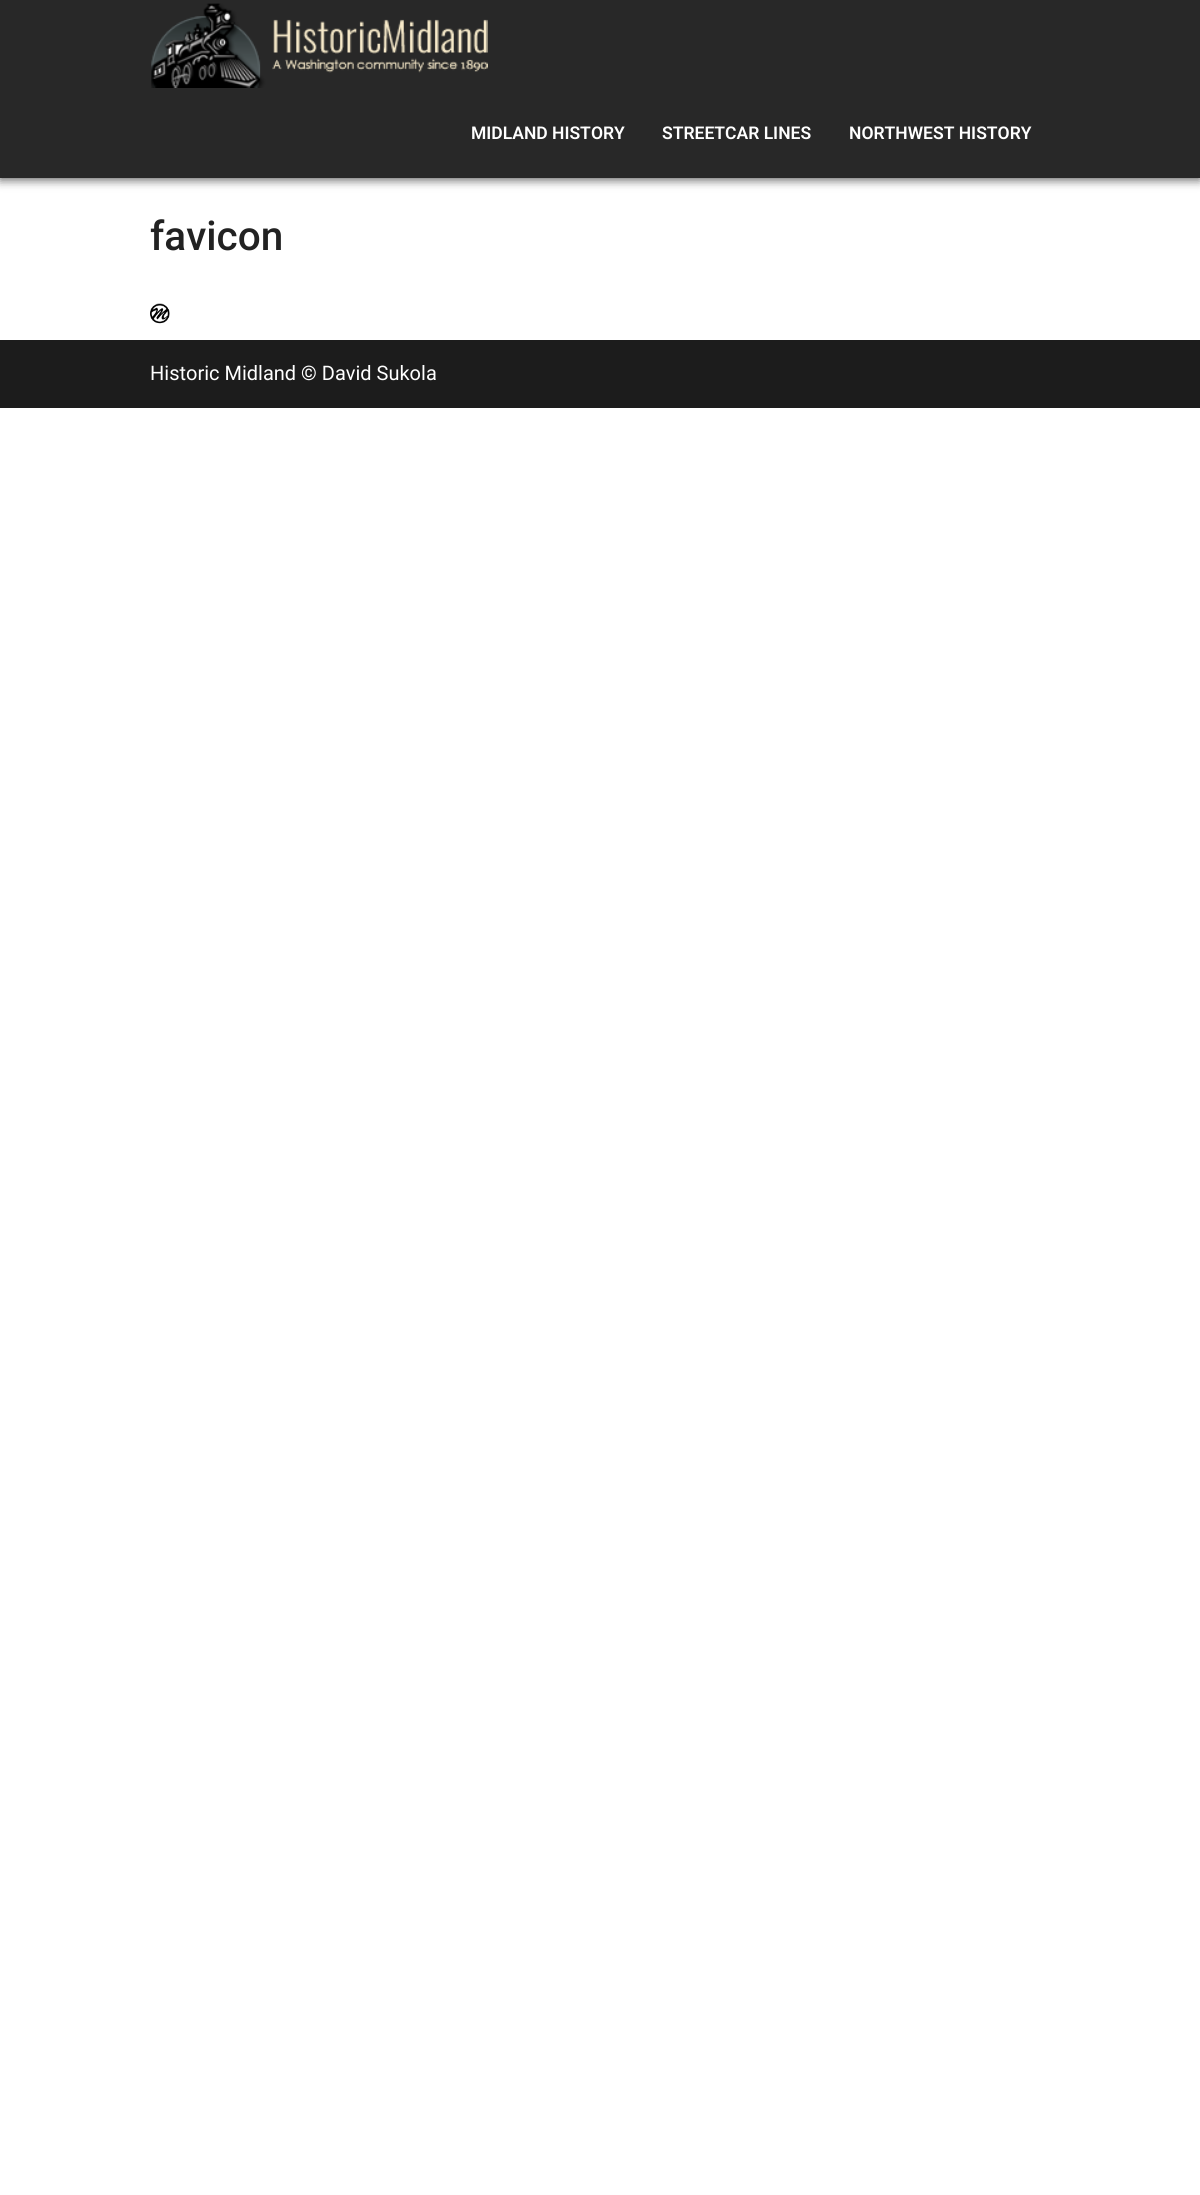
#include <cairo.h>
#include <math.h>
#include <stddef.h>


static void round_rect(cairo_t *cr, double x, double y, double w, double h, double r) {
    cairo_new_sub_path(cr);
    cairo_arc(cr, x + w - r, y + h - r, r, 0, M_PI / 2);
    cairo_arc(cr, x + r, y + h - r, r, M_PI / 2, M_PI);
    cairo_arc(cr, x + r, y + r, r, M_PI, 1.5 * M_PI);
    cairo_arc(cr, x + w - r, y + r, r, 1.5 * M_PI, 2 * M_PI);
    cairo_close_path(cr);
}

static void shadow(cairo_t *cr, double x, double y, double w, double h, double r, double blur, double alpha) {
    cairo_push_group_with_content(cr, CAIRO_CONTENT_ALPHA);
    cairo_set_operator(cr, CAIRO_OPERATOR_SOURCE);
    for (int i = 15; i >= -15 && fmin(w, h) + blur * i / 3 > 0; i -= 2) {
        double e = blur * i / 6;
        cairo_set_source_rgba(cr, 0, 0, 0, alpha * erfc((i - 1) / 8.5) / 2);
        round_rect(cr, x - e, y - e, w + 2 * e, h + 2 * e, fmax(0, fmin(r + e + blur * .6, fmin(w, h) / 2 + e)));
        cairo_fill(cr);
    }
    cairo_pattern_t *soft = cairo_pop_group(cr);
    cairo_mask(cr, soft);
    cairo_pattern_destroy(soft);
}

static void picture(cairo_t *cr, const char *path, double x, double y, double w, double h) {
    cairo_surface_t *image = cairo_image_surface_create_from_png(path);
    cairo_save(cr);
    cairo_set_source_surface(cr, image, x, y);
    cairo_rectangle(cr, x, y, w, h);
    cairo_fill(cr);
    cairo_restore(cr);
    cairo_surface_destroy(image);
}

int main(void) {
    cairo_surface_t *surface = cairo_image_surface_create(CAIRO_FORMAT_RGB24, 1200, 2195);
    cairo_t *cr = cairo_create(surface);
    cairo_font_options_t *options = cairo_font_options_create();
    cairo_font_options_set_hint_metrics(options, CAIRO_HINT_METRICS_OFF);
    cairo_font_options_set_hint_style(options, CAIRO_HINT_STYLE_NONE);
    cairo_set_font_options(cr, options);
    cairo_set_miter_limit(cr, 4);
    cairo_set_source_rgb(cr, 1, 1, 1);
    cairo_paint(cr);
    cairo_set_source_rgb(cr, 0, 0, 0);
    shadow(cr, 0, 3, 1200, 177, 0, 5, 0.62);
    cairo_set_source_rgb(cr, 0.157, 0.157, 0.157);
    cairo_rectangle(cr, 0, 0, 1200, 178);
    cairo_fill(cr);
    picture(cr, "img1.png", 151, 3, 337, 85);
    cairo_select_font_face(cr, "Roboto SemiBold", CAIRO_FONT_SLANT_NORMAL, CAIRO_FONT_WEIGHT_NORMAL);
    cairo_set_font_size(cr, 17.5);
    cairo_set_source_rgb(cr, 1, 1, 1);
    cairo_move_to(cr, 471, 139);
    cairo_show_text(cr, "MIDLAND HISTORY");
    cairo_move_to(cr, 662, 139);
    cairo_show_text(cr, "STREETCAR LINES");
    cairo_move_to(cr, 849, 139);
    cairo_show_text(cr, "NORTHWEST HISTORY");
    cairo_select_font_face(cr, "Roboto Medium", CAIRO_FONT_SLANT_NORMAL, CAIRO_FONT_WEIGHT_NORMAL);
    cairo_set_font_size(cr, 40.5);
    cairo_set_source_rgb(cr, 0.133, 0.133, 0.133);
    cairo_move_to(cr, 150, 250);
    cairo_show_text(cr, "favicon");
    picture(cr, "img2.png", 150, 303, 20, 21);
    cairo_set_source_rgb(cr, 0.11, 0.11, 0.11);
    cairo_rectangle(cr, 0, 340, 1200, 68);
    cairo_fill(cr);
    cairo_select_font_face(cr, "Roboto", CAIRO_FONT_SLANT_NORMAL, CAIRO_FONT_WEIGHT_NORMAL);
    cairo_set_font_size(cr, 20);
    cairo_set_source_rgb(cr, 1, 1, 1);
    cairo_move_to(cr, 150, 380);
    cairo_show_text(cr, "Historic Midland © David Sukola");
    cairo_surface_write_to_png(surface, "page.png");
    cairo_font_options_destroy(options);
    cairo_destroy(cr);
    cairo_surface_destroy(surface);
    return 0;
}
